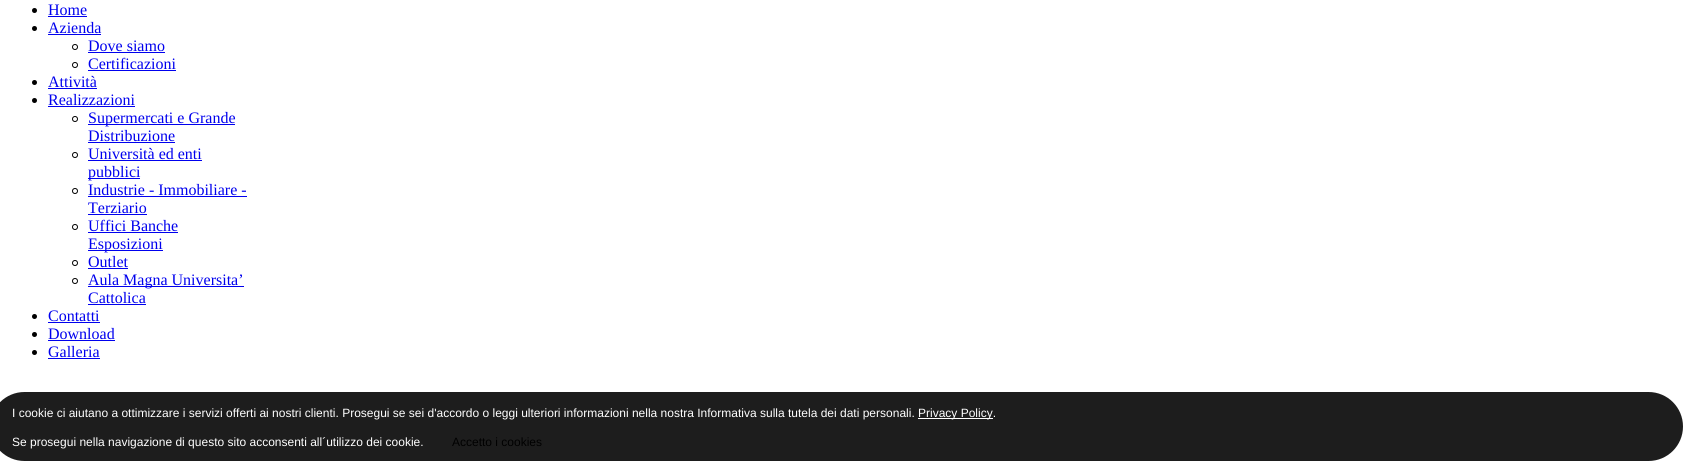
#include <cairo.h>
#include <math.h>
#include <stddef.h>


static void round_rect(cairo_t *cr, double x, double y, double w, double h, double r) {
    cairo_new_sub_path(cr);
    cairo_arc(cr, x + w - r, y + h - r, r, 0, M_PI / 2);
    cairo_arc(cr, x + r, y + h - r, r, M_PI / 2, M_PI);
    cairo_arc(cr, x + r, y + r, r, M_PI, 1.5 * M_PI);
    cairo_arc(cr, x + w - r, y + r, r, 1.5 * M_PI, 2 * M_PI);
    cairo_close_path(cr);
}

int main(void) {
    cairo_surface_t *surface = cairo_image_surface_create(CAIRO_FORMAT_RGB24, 1683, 461);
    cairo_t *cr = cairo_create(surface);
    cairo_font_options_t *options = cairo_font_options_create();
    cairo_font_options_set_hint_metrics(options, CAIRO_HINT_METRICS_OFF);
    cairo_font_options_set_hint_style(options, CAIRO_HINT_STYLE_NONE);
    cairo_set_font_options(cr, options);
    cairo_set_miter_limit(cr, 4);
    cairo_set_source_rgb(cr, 1, 1, 1);
    cairo_paint(cr);
    cairo_set_source_rgb(cr, 0, 0, 0);
    cairo_arc(cr, 34.5, 10.5, 2.5, 0, 2 * M_PI);
    cairo_fill(cr);
    cairo_select_font_face(cr, "Liberation Serif", CAIRO_FONT_SLANT_NORMAL, CAIRO_FONT_WEIGHT_NORMAL);
    cairo_set_font_size(cr, 16);
    cairo_set_source_rgb(cr, 0, 0, 0.933);
    cairo_move_to(cr, 48, 15);
    cairo_show_text(cr, "Home");
    cairo_rectangle(cr, 48, 16, 39, 1);
    cairo_fill(cr);
    cairo_set_source_rgb(cr, 0, 0, 0);
    cairo_arc(cr, 34.5, 28.5, 2.5, 0, 2 * M_PI);
    cairo_fill(cr);
    cairo_set_source_rgb(cr, 0, 0, 0.933);
    cairo_move_to(cr, 48, 33);
    cairo_show_text(cr, "Azienda");
    cairo_rectangle(cr, 48, 34, 53, 1);
    cairo_fill(cr);
    cairo_arc(cr, 75, 47, 2.5, 0, 2 * M_PI);
    cairo_set_source_rgb(cr, 0, 0, 0);
    cairo_set_line_width(cr, 1);
    cairo_stroke(cr);
    cairo_set_source_rgb(cr, 0, 0, 0.933);
    cairo_move_to(cr, 88, 51);
    cairo_show_text(cr, "Dove siamo");
    cairo_rectangle(cr, 88, 52, 77, 1);
    cairo_fill(cr);
    cairo_arc(cr, 75, 65, 2.5, 0, 2 * M_PI);
    cairo_set_source_rgb(cr, 0, 0, 0);
    cairo_stroke(cr);
    cairo_set_source_rgb(cr, 0, 0, 0.933);
    cairo_move_to(cr, 88, 69);
    cairo_show_text(cr, "Certificazioni");
    cairo_rectangle(cr, 88, 70, 88, 1);
    cairo_fill(cr);
    cairo_set_source_rgb(cr, 0, 0, 0);
    cairo_arc(cr, 34.5, 82.5, 2.5, 0, 2 * M_PI);
    cairo_fill(cr);
    cairo_set_source_rgb(cr, 0, 0, 0.933);
    cairo_move_to(cr, 48, 87);
    cairo_show_text(cr, "Attività");
    cairo_rectangle(cr, 48, 88, 49, 1);
    cairo_fill(cr);
    cairo_set_source_rgb(cr, 0, 0, 0);
    cairo_arc(cr, 34.5, 100.5, 2.5, 0, 2 * M_PI);
    cairo_fill(cr);
    cairo_set_source_rgb(cr, 0, 0, 0.933);
    cairo_move_to(cr, 48, 105);
    cairo_show_text(cr, "Realizzazioni");
    cairo_rectangle(cr, 48, 106, 87, 1);
    cairo_fill(cr);
    cairo_arc(cr, 75, 119, 2.5, 0, 2 * M_PI);
    cairo_set_source_rgb(cr, 0, 0, 0);
    cairo_stroke(cr);
    cairo_set_source_rgb(cr, 0, 0, 0.933);
    cairo_rectangle(cr, 88, 124, 147, 1);
    cairo_fill(cr);
    cairo_move_to(cr, 88, 123);
    cairo_show_text(cr, "Supermercati e Grande");
    cairo_move_to(cr, 88, 141);
    cairo_show_text(cr, "Distribuzione");
    cairo_rectangle(cr, 88, 142, 87, 1);
    cairo_fill(cr);
    cairo_arc(cr, 75, 155, 2.5, 0, 2 * M_PI);
    cairo_set_source_rgb(cr, 0, 0, 0);
    cairo_stroke(cr);
    cairo_set_source_rgb(cr, 0, 0, 0.933);
    cairo_move_to(cr, 88, 159);
    cairo_show_text(cr, "Università ed enti");
    cairo_rectangle(cr, 88, 160, 114, 1);
    cairo_fill(cr);
    cairo_rectangle(cr, 88, 178, 52, 1);
    cairo_fill(cr);
    cairo_move_to(cr, 88, 177);
    cairo_show_text(cr, "pubblici");
    cairo_new_path(cr);
    cairo_arc(cr, 75, 191, 2.5, 0, 2 * M_PI);
    cairo_set_source_rgb(cr, 0, 0, 0);
    cairo_stroke(cr);
    cairo_set_source_rgb(cr, 0, 0, 0.933);
    cairo_move_to(cr, 88, 195);
    cairo_show_text(cr, "Industrie - Immobiliare -");
    cairo_rectangle(cr, 88, 196, 159, 1);
    cairo_fill(cr);
    cairo_move_to(cr, 88, 213);
    cairo_show_text(cr, "Terziario");
    cairo_rectangle(cr, 88, 214, 59, 1);
    cairo_fill(cr);
    cairo_arc(cr, 75, 227, 2.5, 0, 2 * M_PI);
    cairo_set_source_rgb(cr, 0, 0, 0);
    cairo_stroke(cr);
    cairo_set_source_rgb(cr, 0, 0, 0.933);
    cairo_move_to(cr, 88, 231);
    cairo_show_text(cr, "Uffici Banche");
    cairo_rectangle(cr, 88, 232, 90, 1);
    cairo_fill(cr);
    cairo_rectangle(cr, 88, 250, 75, 1);
    cairo_fill(cr);
    cairo_move_to(cr, 88, 249);
    cairo_show_text(cr, "Esposizioni");
    cairo_new_path(cr);
    cairo_arc(cr, 75, 263, 2.5, 0, 2 * M_PI);
    cairo_set_source_rgb(cr, 0, 0, 0);
    cairo_stroke(cr);
    cairo_set_source_rgb(cr, 0, 0, 0.933);
    cairo_move_to(cr, 88, 267);
    cairo_show_text(cr, "Outlet");
    cairo_rectangle(cr, 88, 268, 40, 1);
    cairo_fill(cr);
    cairo_arc(cr, 75, 281, 2.5, 0, 2 * M_PI);
    cairo_set_source_rgb(cr, 0, 0, 0);
    cairo_stroke(cr);
    cairo_set_source_rgb(cr, 0, 0, 0.933);
    cairo_rectangle(cr, 88, 286, 156, 1);
    cairo_fill(cr);
    cairo_move_to(cr, 88, 285);
    cairo_show_text(cr, "Aula Magna Universita’");
    cairo_move_to(cr, 88, 303);
    cairo_show_text(cr, "Cattolica");
    cairo_rectangle(cr, 88, 304, 58, 1);
    cairo_fill(cr);
    cairo_set_source_rgb(cr, 0, 0, 0);
    cairo_arc(cr, 34.5, 316.5, 2.5, 0, 2 * M_PI);
    cairo_fill(cr);
    cairo_set_source_rgb(cr, 0, 0, 0.933);
    cairo_move_to(cr, 48, 321);
    cairo_show_text(cr, "Contatti");
    cairo_rectangle(cr, 48, 322, 52, 1);
    cairo_fill(cr);
    cairo_set_source_rgb(cr, 0, 0, 0);
    cairo_arc(cr, 34.5, 334.5, 2.5, 0, 2 * M_PI);
    cairo_fill(cr);
    cairo_set_source_rgb(cr, 0, 0, 0.933);
    cairo_move_to(cr, 48, 339);
    cairo_show_text(cr, "Download");
    cairo_rectangle(cr, 48, 340, 67, 1);
    cairo_fill(cr);
    cairo_set_source_rgb(cr, 0, 0, 0);
    cairo_arc(cr, 34.5, 352.5, 2.5, 0, 2 * M_PI);
    cairo_fill(cr);
    cairo_set_source_rgb(cr, 0, 0, 0.933);
    cairo_move_to(cr, 48, 357);
    cairo_show_text(cr, "Galleria");
    cairo_rectangle(cr, 48, 358, 52, 1);
    cairo_fill(cr);
    cairo_set_source_rgb(cr, 0.114, 0.114, 0.114);
    round_rect(cr, -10, 392, 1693, 69, 34.5);
    cairo_fill(cr);
    cairo_select_font_face(cr, "Liberation Sans", CAIRO_FONT_SLANT_NORMAL, CAIRO_FONT_WEIGHT_NORMAL);
    cairo_set_font_size(cr, 12);
    cairo_set_source_rgb(cr, 1, 1, 1);
    cairo_move_to(cr, 12, 417);
    cairo_show_text(cr, "I cookie ci aiutano a ottimizzare i servizi offerti ai nostri clienti. Prosegui se sei d'accordo o leggi ulteriori informazioni nella nostra Informativa sulla tutela dei dati personali.");
    cairo_rectangle(cr, 918, 418, 75, 1);
    cairo_fill(cr);
    cairo_move_to(cr, 918, 417);
    cairo_show_text(cr, "Privacy Policy.");
    cairo_move_to(cr, 12, 446);
    cairo_show_text(cr, "Se prosegui nella navigazione di questo sito acconsenti all´utilizzo dei cookie.");
    cairo_set_source_rgb(cr, 0, 0, 0);
    cairo_move_to(cr, 452, 446);
    cairo_show_text(cr, "Accetto i cookies");
    cairo_surface_write_to_png(surface, "page.png");
    cairo_font_options_destroy(options);
    cairo_destroy(cr);
    cairo_surface_destroy(surface);
    return 0;
}
